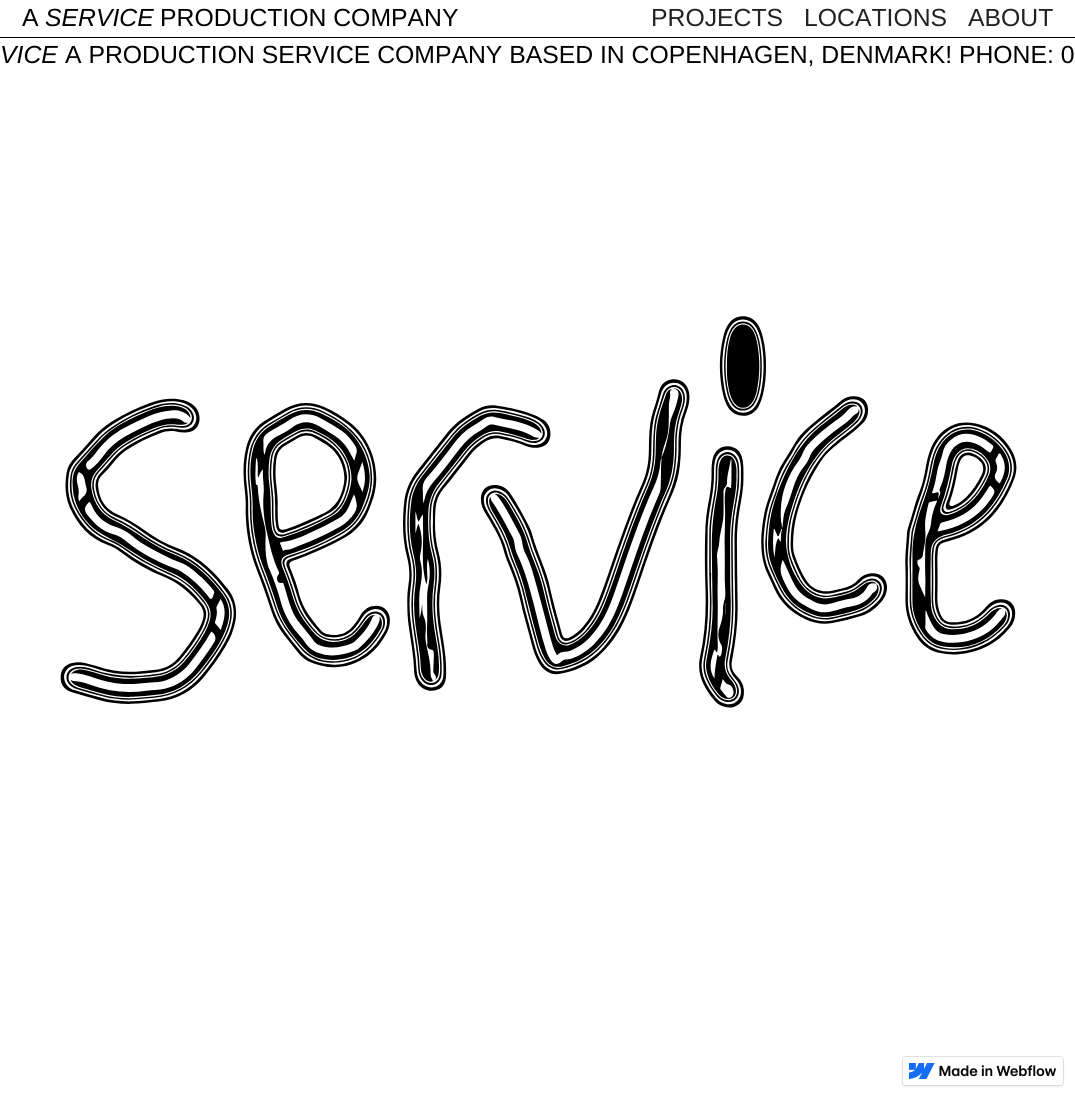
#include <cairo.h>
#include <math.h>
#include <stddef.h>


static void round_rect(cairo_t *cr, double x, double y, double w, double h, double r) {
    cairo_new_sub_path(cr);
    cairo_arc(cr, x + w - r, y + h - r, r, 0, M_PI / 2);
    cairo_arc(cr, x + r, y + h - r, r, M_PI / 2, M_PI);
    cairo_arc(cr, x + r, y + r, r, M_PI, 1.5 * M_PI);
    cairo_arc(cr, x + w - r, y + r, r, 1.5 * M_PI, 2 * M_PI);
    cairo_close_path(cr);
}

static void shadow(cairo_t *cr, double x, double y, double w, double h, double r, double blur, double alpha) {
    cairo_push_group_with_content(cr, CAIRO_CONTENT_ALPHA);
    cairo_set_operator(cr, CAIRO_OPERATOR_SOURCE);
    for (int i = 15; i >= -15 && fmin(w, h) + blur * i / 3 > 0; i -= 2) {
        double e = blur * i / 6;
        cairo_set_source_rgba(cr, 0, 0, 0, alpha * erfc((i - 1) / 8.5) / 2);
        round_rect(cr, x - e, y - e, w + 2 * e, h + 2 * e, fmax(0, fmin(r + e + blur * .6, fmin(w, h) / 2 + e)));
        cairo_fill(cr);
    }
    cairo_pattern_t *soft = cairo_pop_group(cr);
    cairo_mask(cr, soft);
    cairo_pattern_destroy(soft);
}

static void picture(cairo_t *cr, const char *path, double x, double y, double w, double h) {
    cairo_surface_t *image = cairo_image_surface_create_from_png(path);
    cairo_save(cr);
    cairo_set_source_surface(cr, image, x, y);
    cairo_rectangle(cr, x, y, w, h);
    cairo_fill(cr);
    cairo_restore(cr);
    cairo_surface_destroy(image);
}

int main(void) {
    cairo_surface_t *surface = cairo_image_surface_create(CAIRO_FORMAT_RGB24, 1075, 1097);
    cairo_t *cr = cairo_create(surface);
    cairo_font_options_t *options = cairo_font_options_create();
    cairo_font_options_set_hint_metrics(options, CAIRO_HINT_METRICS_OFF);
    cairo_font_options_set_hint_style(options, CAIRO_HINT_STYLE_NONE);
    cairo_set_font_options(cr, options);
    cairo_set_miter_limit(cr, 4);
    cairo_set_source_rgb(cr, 1, 1, 1);
    cairo_paint(cr);
    cairo_set_source_rgb(cr, 0, 0, 0);
    cairo_rectangle(cr, 0, 37, 1075, 1);
    cairo_fill(cr);
    cairo_select_font_face(cr, "Liberation Sans", CAIRO_FONT_SLANT_NORMAL, CAIRO_FONT_WEIGHT_NORMAL);
    cairo_set_font_size(cr, 24.75);
    cairo_move_to(cr, 22, 26);
    cairo_show_text(cr, "A");
    cairo_select_font_face(cr, "Liberation Sans", CAIRO_FONT_SLANT_ITALIC, CAIRO_FONT_WEIGHT_NORMAL);
    cairo_move_to(cr, 45, 26);
    cairo_show_text(cr, "SERVICE");
    cairo_select_font_face(cr, "Liberation Sans", CAIRO_FONT_SLANT_NORMAL, CAIRO_FONT_WEIGHT_NORMAL);
    cairo_move_to(cr, 160, 26);
    cairo_show_text(cr, "PRODUCTION COMPANY");
    cairo_set_source_rgb(cr, 0.133, 0.133, 0.133);
    cairo_move_to(cr, 651, 26);
    cairo_show_text(cr, "PROJECTS");
    cairo_move_to(cr, 804, 26);
    cairo_show_text(cr, "LOCATIONS");
    cairo_move_to(cr, 968, 26);
    cairo_show_text(cr, "ABOUT");
    cairo_select_font_face(cr, "Liberation Sans", CAIRO_FONT_SLANT_ITALIC, CAIRO_FONT_WEIGHT_NORMAL);
    cairo_set_source_rgb(cr, 0, 0, 0);
    cairo_move_to(cr, 0, 63);
    cairo_show_text(cr, "VICE");
    cairo_select_font_face(cr, "Liberation Sans", CAIRO_FONT_SLANT_NORMAL, CAIRO_FONT_WEIGHT_NORMAL);
    cairo_move_to(cr, 65, 63);
    cairo_show_text(cr, "A PRODUCTION SERVICE COMPANY BASED IN COPENHAGEN, DENMARK! PHONE: 0");
    picture(cr, "img1.png", 60, 316, 957, 392);
    cairo_set_source_rgb(cr, 0, 0, 0);
    shadow(cr, 903, 1058, 160, 28, 3, 1.5, 0.1);
    round_rect(cr, 902.5, 1056.5, 161, 29, 3.5);
    cairo_set_source_rgba(cr, 0, 0, 0, 0.1);
    cairo_set_line_width(cr, 1);
    cairo_stroke(cr);
    cairo_set_source_rgb(cr, 1, 1, 1);
    round_rect(cr, 903, 1057, 160, 28, 3);
    cairo_fill(cr);
    picture(cr, "img2.png", 909, 1063, 26, 16);
    picture(cr, "img3.png", 939, 1065, 118, 12);
    cairo_surface_write_to_png(surface, "page.png");
    cairo_font_options_destroy(options);
    cairo_destroy(cr);
    cairo_surface_destroy(surface);
    return 0;
}
